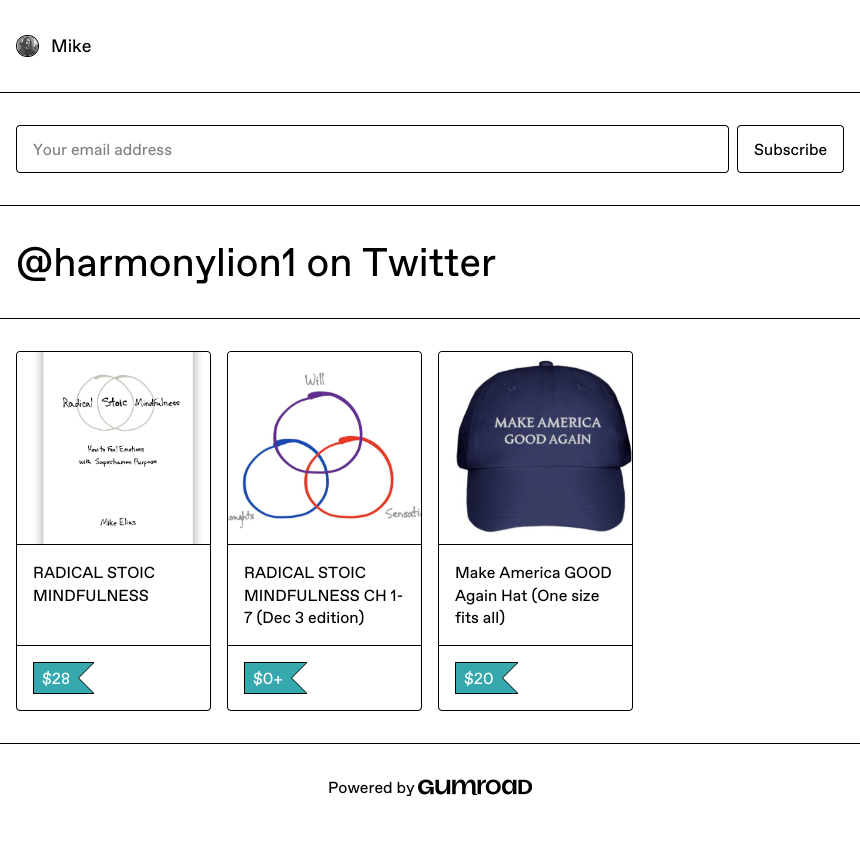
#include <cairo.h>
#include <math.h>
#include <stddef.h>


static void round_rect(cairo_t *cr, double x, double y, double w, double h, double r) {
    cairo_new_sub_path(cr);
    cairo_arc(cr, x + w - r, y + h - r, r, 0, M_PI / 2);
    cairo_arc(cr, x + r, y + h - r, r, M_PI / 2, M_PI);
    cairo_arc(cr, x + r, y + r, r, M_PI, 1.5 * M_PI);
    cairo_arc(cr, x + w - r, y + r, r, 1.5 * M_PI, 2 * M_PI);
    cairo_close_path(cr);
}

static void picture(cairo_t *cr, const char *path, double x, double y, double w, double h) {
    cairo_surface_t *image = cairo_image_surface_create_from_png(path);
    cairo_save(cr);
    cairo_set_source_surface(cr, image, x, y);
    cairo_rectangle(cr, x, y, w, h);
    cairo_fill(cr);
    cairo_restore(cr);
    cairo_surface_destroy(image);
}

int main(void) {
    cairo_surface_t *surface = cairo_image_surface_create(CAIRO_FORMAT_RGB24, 860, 844);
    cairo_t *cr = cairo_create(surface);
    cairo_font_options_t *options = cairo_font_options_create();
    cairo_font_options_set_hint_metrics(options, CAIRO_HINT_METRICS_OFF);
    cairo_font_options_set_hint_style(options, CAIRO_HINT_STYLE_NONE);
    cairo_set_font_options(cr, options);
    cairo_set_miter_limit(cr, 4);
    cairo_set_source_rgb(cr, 1, 1, 1);
    cairo_paint(cr);
    cairo_set_source_rgb(cr, 0, 0, 0);
    cairo_rectangle(cr, 0, 92, 860, 1);
    cairo_fill(cr);
    round_rect(cr, 16.5, 35.5, 22, 21, 10.5);
    cairo_set_line_width(cr, 1);
    cairo_stroke(cr);
    picture(cr, "img1.png", 17, 36, 21, 20);
    cairo_select_font_face(cr, "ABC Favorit", CAIRO_FONT_SLANT_NORMAL, CAIRO_FONT_WEIGHT_NORMAL);
    cairo_set_font_size(cr, 18);
    cairo_move_to(cr, 51, 52);
    cairo_show_text(cr, "Mike");
    cairo_rectangle(cr, 0, 205, 860, 1);
    cairo_fill(cr);
    round_rect(cr, 16.5, 125.5, 712, 47, 3.5);
    cairo_stroke(cr);
    cairo_set_font_size(cr, 16);
    cairo_set_source_rgb(cr, 0.502, 0.502, 0.502);
    cairo_move_to(cr, 33, 155);
    cairo_show_text(cr, "Your email address");
    round_rect(cr, 737.5, 125.5, 106, 47, 3.5);
    cairo_set_source_rgb(cr, 0, 0, 0);
    cairo_stroke(cr);
    cairo_move_to(cr, 754, 155);
    cairo_show_text(cr, "Subscribe");
    cairo_rectangle(cr, 0, 318, 860, 1);
    cairo_fill(cr);
    cairo_set_font_size(cr, 40);
    cairo_move_to(cr, 16, 276);
    cairo_show_text(cr, "@harmonylion1 on Twitter");
    cairo_rectangle(cr, 0, 743, 860, 1);
    cairo_fill(cr);
    round_rect(cr, 16.5, 351.5, 194, 359, 3.5);
    cairo_stroke(cr);
    cairo_rectangle(cr, 17, 544, 193, 1);
    cairo_fill(cr);
    picture(cr, "img2.png", 17, 352, 193, 192);
    cairo_rectangle(cr, 17, 645, 193, 1);
    cairo_fill(cr);
    cairo_set_font_size(cr, 16);
    cairo_move_to(cr, 33, 578);
    cairo_show_text(cr, "RADICAL STOIC");
    cairo_move_to(cr, 33, 601);
    cairo_show_text(cr, "MINDFULNESS");
    cairo_rectangle(cr, 33, 662, 61, 1);
    cairo_fill(cr);
    cairo_rectangle(cr, 33, 693, 61, 1);
    cairo_fill(cr);
    cairo_rectangle(cr, 33, 662, 1, 32);
    cairo_fill(cr);
    cairo_set_source_rgb(cr, 0.212, 0.663, 0.682);
    cairo_rectangle(cr, 34, 663, 44, 30);
    cairo_fill(cr);
    cairo_set_source_rgb(cr, 0, 0, 0);
    cairo_new_path(cr);
    cairo_move_to(cr, 78, 663);
    cairo_line_to(cr, 94, 663);
    cairo_line_to(cr, 79, 678);
    cairo_close_path(cr);
    cairo_move_to(cr, 94, 693);
    cairo_line_to(cr, 78, 693);
    cairo_line_to(cr, 79, 678);
    cairo_close_path(cr);
    cairo_fill(cr);
    cairo_rectangle(cr, 78, 677, 1, 2);
    cairo_fill(cr);
    cairo_set_source_rgb(cr, 0.212, 0.663, 0.682);
    cairo_new_path(cr);
    cairo_move_to(cr, 77, 663);
    cairo_line_to(cr, 93, 663);
    cairo_line_to(cr, 78, 678);
    cairo_close_path(cr);
    cairo_move_to(cr, 93, 693);
    cairo_line_to(cr, 77, 693);
    cairo_line_to(cr, 78, 678);
    cairo_close_path(cr);
    cairo_fill(cr);
    cairo_set_source_rgb(cr, 1, 1, 1);
    cairo_move_to(cr, 42, 684);
    cairo_show_text(cr, "$28");
    round_rect(cr, 227.5, 351.5, 194, 359, 3.5);
    cairo_set_source_rgb(cr, 0, 0, 0);
    cairo_stroke(cr);
    cairo_rectangle(cr, 228, 544, 193, 1);
    cairo_fill(cr);
    picture(cr, "img3.png", 228, 352, 193, 177);
    cairo_rectangle(cr, 228, 645, 193, 1);
    cairo_fill(cr);
    cairo_move_to(cr, 244, 578);
    cairo_show_text(cr, "RADICAL STOIC");
    cairo_move_to(cr, 244, 601);
    cairo_show_text(cr, "MINDFULNESS CH 1-");
    cairo_move_to(cr, 244, 623);
    cairo_show_text(cr, "7 (Dec 3 edition)");
    cairo_rectangle(cr, 244, 662, 63, 1);
    cairo_fill(cr);
    cairo_rectangle(cr, 244, 693, 63, 1);
    cairo_fill(cr);
    cairo_rectangle(cr, 244, 662, 1, 32);
    cairo_fill(cr);
    cairo_set_source_rgb(cr, 0.212, 0.663, 0.682);
    cairo_rectangle(cr, 245, 663, 46, 30);
    cairo_fill(cr);
    cairo_set_source_rgb(cr, 0, 0, 0);
    cairo_new_path(cr);
    cairo_move_to(cr, 291, 663);
    cairo_line_to(cr, 307, 663);
    cairo_line_to(cr, 292, 678);
    cairo_close_path(cr);
    cairo_move_to(cr, 307, 693);
    cairo_line_to(cr, 291, 693);
    cairo_line_to(cr, 292, 678);
    cairo_close_path(cr);
    cairo_fill(cr);
    cairo_rectangle(cr, 291, 677, 1, 2);
    cairo_fill(cr);
    cairo_set_source_rgb(cr, 0.212, 0.663, 0.682);
    cairo_new_path(cr);
    cairo_move_to(cr, 290, 663);
    cairo_line_to(cr, 306, 663);
    cairo_line_to(cr, 291, 678);
    cairo_close_path(cr);
    cairo_move_to(cr, 306, 693);
    cairo_line_to(cr, 290, 693);
    cairo_line_to(cr, 291, 678);
    cairo_close_path(cr);
    cairo_fill(cr);
    cairo_set_source_rgb(cr, 1, 1, 1);
    cairo_move_to(cr, 253, 684);
    cairo_show_text(cr, "$0+");
    round_rect(cr, 438.5, 351.5, 194, 359, 3.5);
    cairo_set_source_rgb(cr, 0, 0, 0);
    cairo_stroke(cr);
    cairo_rectangle(cr, 439, 544, 193, 1);
    cairo_fill(cr);
    picture(cr, "img4.png", 439, 352, 193, 182);
    cairo_rectangle(cr, 439, 645, 193, 1);
    cairo_fill(cr);
    cairo_move_to(cr, 455, 578);
    cairo_show_text(cr, "Make America GOOD");
    cairo_move_to(cr, 455, 601);
    cairo_show_text(cr, "Again Hat (One size");
    cairo_move_to(cr, 455, 623);
    cairo_show_text(cr, "fits all)");
    cairo_rectangle(cr, 455, 662, 63, 1);
    cairo_fill(cr);
    cairo_rectangle(cr, 455, 693, 63, 1);
    cairo_fill(cr);
    cairo_rectangle(cr, 455, 662, 1, 32);
    cairo_fill(cr);
    cairo_set_source_rgb(cr, 0.212, 0.663, 0.682);
    cairo_rectangle(cr, 456, 663, 46, 30);
    cairo_fill(cr);
    cairo_set_source_rgb(cr, 0, 0, 0);
    cairo_new_path(cr);
    cairo_move_to(cr, 502, 663);
    cairo_line_to(cr, 518, 663);
    cairo_line_to(cr, 503, 678);
    cairo_close_path(cr);
    cairo_move_to(cr, 518, 693);
    cairo_line_to(cr, 502, 693);
    cairo_line_to(cr, 503, 678);
    cairo_close_path(cr);
    cairo_fill(cr);
    cairo_rectangle(cr, 502, 677, 1, 2);
    cairo_fill(cr);
    cairo_set_source_rgb(cr, 0.212, 0.663, 0.682);
    cairo_new_path(cr);
    cairo_move_to(cr, 501, 663);
    cairo_line_to(cr, 517, 663);
    cairo_line_to(cr, 502, 678);
    cairo_close_path(cr);
    cairo_move_to(cr, 517, 693);
    cairo_line_to(cr, 501, 693);
    cairo_line_to(cr, 502, 678);
    cairo_close_path(cr);
    cairo_fill(cr);
    cairo_set_source_rgb(cr, 1, 1, 1);
    cairo_move_to(cr, 464, 684);
    cairo_show_text(cr, "$20");
    cairo_set_source_rgb(cr, 0, 0, 0);
    cairo_move_to(cr, 328, 793);
    cairo_show_text(cr, "Powered by");
    picture(cr, "img5.png", 418, 779, 114, 16);
    cairo_rectangle(cr, 473, 794, 4, 1);
    cairo_fill(cr);
    cairo_surface_write_to_png(surface, "page.png");
    cairo_font_options_destroy(options);
    cairo_destroy(cr);
    cairo_surface_destroy(surface);
    return 0;
}
